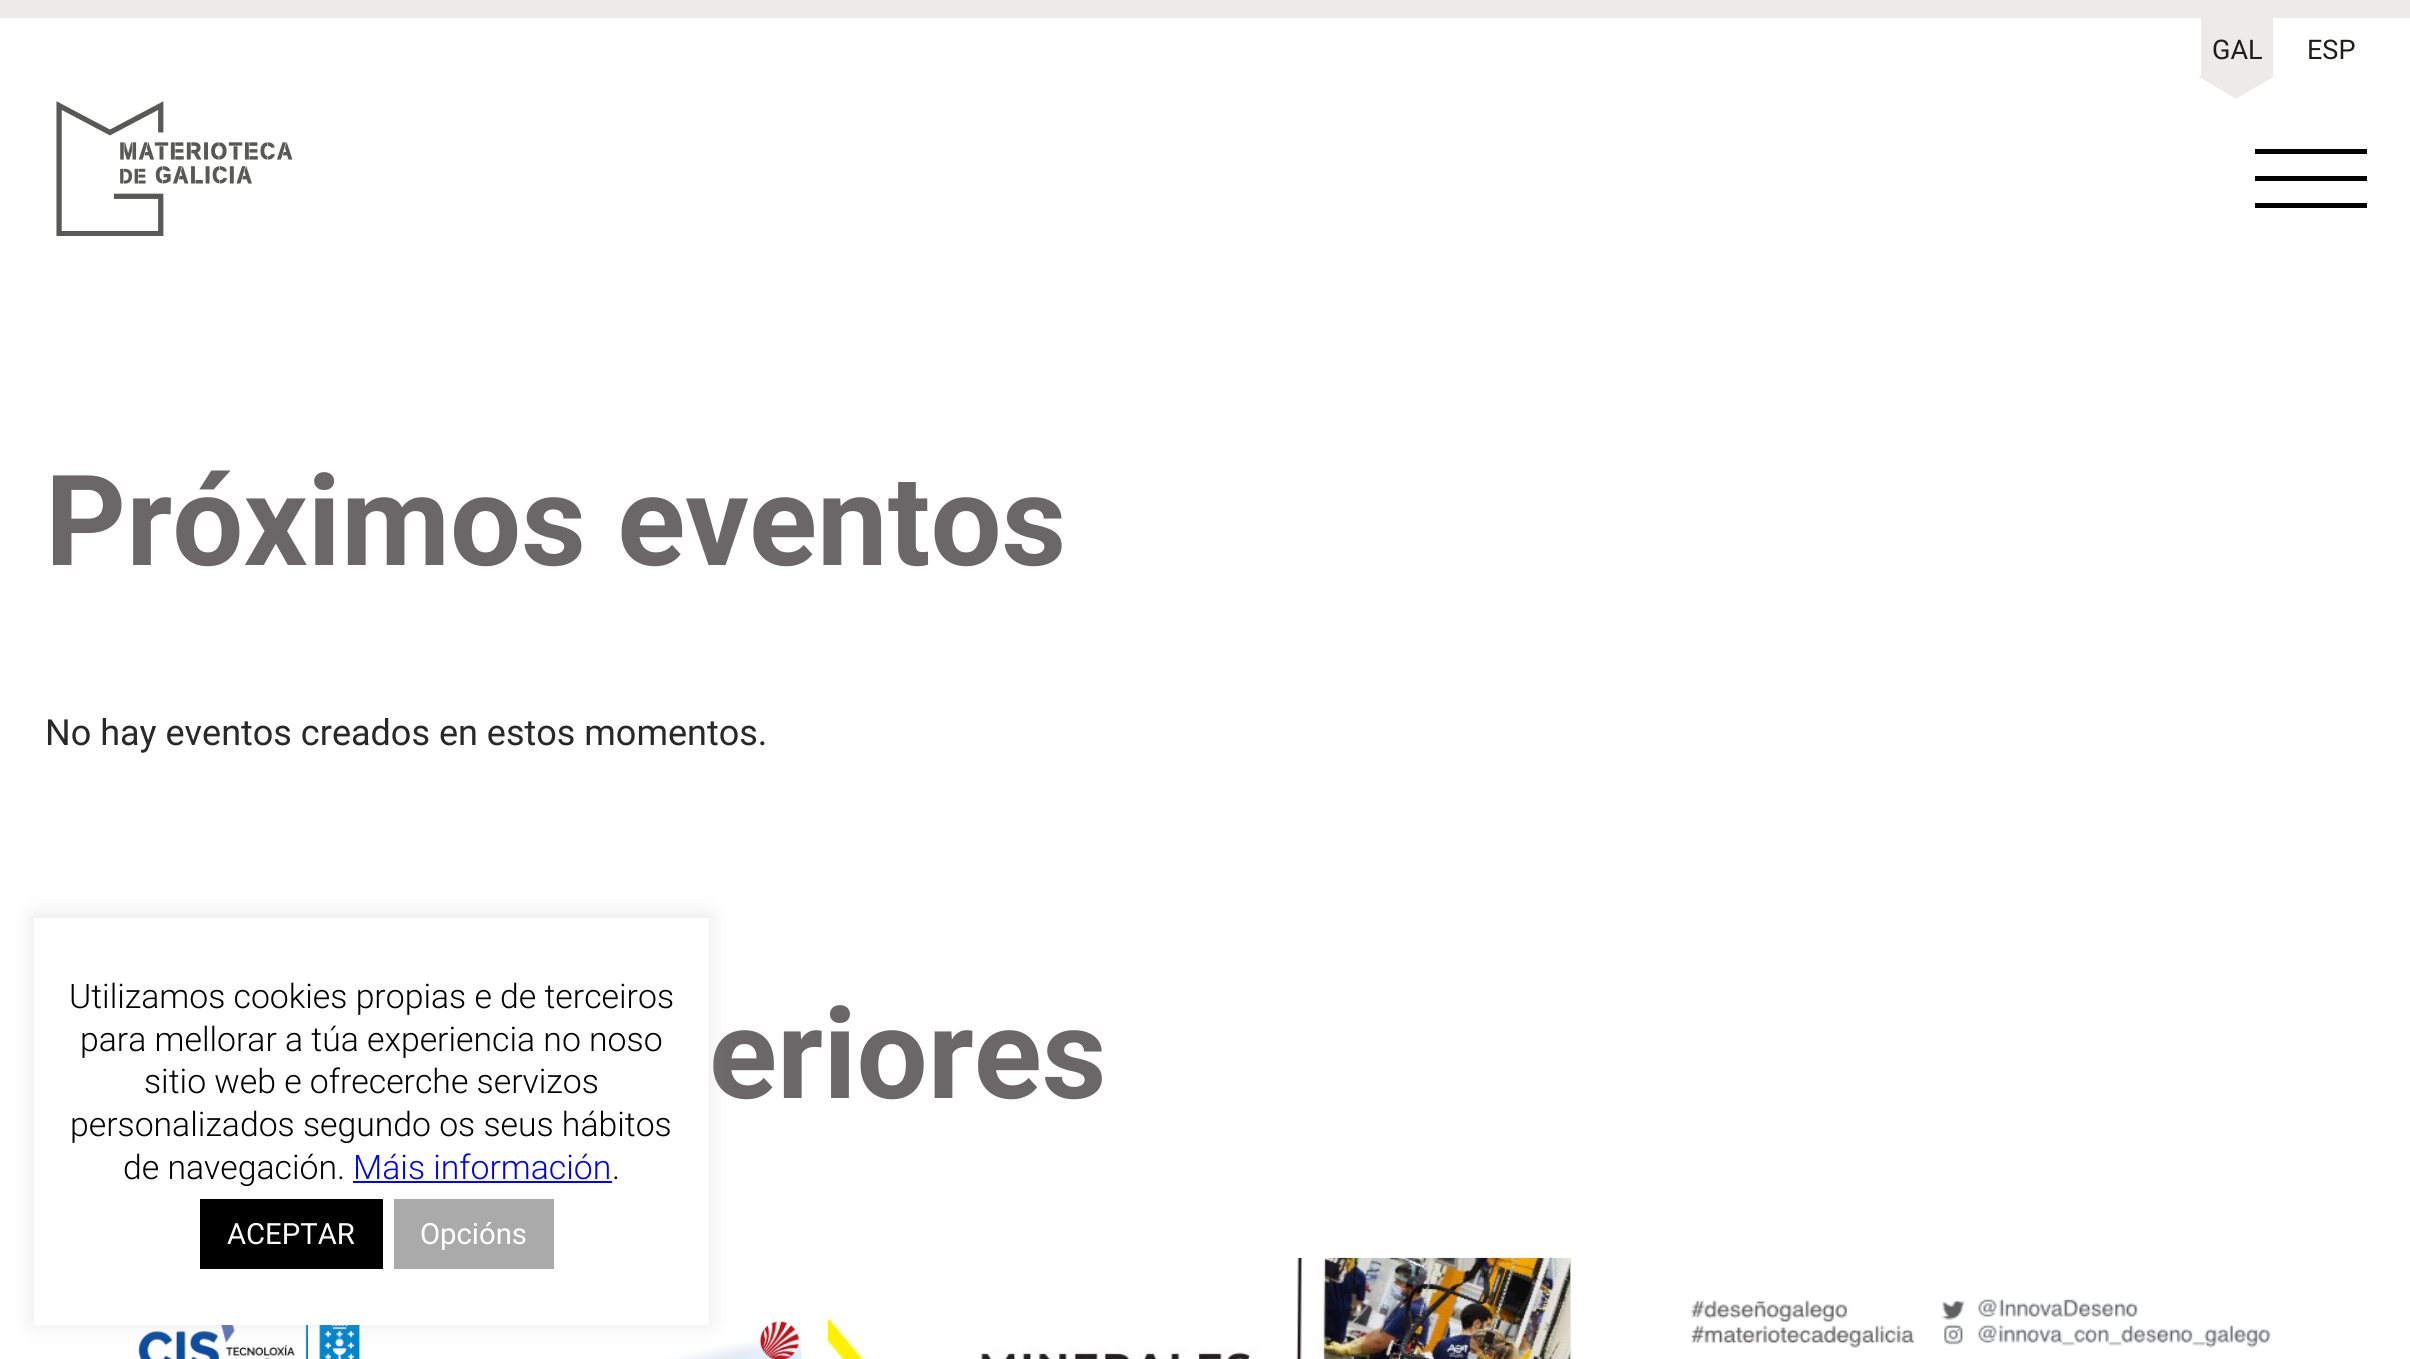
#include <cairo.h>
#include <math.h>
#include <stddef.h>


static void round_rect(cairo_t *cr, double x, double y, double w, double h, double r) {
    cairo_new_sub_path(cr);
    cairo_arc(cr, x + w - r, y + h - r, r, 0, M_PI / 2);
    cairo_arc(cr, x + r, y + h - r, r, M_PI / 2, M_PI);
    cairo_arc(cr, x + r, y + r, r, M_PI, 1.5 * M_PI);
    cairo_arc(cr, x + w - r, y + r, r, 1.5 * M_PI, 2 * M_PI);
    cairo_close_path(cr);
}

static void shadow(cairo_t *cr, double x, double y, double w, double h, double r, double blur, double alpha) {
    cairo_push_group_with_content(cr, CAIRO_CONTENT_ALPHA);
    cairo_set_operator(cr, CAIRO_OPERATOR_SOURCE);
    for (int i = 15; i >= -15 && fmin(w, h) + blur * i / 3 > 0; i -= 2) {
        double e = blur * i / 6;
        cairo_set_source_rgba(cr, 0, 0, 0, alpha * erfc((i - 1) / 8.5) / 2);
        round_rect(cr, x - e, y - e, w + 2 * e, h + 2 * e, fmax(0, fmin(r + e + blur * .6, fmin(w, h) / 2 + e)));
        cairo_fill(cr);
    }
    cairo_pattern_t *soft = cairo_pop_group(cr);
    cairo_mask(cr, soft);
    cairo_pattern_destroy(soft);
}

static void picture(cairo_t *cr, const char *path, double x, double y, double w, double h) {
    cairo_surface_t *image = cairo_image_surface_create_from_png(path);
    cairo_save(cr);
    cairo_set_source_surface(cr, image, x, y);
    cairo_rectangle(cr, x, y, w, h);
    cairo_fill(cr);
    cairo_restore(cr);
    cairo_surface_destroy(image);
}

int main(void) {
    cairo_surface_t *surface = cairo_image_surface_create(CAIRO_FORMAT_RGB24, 2410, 1359);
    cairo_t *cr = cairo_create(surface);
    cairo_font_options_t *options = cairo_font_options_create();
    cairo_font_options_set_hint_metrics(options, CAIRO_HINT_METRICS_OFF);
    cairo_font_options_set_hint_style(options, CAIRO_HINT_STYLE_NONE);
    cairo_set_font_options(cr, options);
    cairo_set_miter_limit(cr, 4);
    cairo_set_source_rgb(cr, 1, 1, 1);
    cairo_paint(cr);
    cairo_set_source_rgb(cr, 0.922, 0.918, 0.914);
    cairo_rectangle(cr, 0, 0, 2410, 18);
    cairo_fill(cr);
    cairo_rectangle(cr, 2201, 18, 72, 58);
    cairo_fill(cr);
    cairo_select_font_face(cr, "Roboto", CAIRO_FONT_SLANT_NORMAL, CAIRO_FONT_WEIGHT_NORMAL);
    cairo_set_font_size(cr, 27);
    cairo_set_source_rgb(cr, 0.114, 0.114, 0.106);
    cairo_move_to(cr, 2212, 59);
    cairo_show_text(cr, "GAL");
    cairo_set_source_rgb(cr, 0.922, 0.918, 0.914);
    cairo_new_path(cr);
    cairo_move_to(cr, 2198, 76);
    cairo_line_to(cr, 2275, 76);
    cairo_line_to(cr, 2236, 99);
    cairo_close_path(cr);
    cairo_fill(cr);
    cairo_set_source_rgb(cr, 0.114, 0.114, 0.106);
    cairo_move_to(cr, 2307, 59);
    cairo_show_text(cr, "ESP");
    picture(cr, "img1.png", 56, 101, 237, 135);
    cairo_set_source_rgb(cr, 0, 0, 0);
    cairo_rectangle(cr, 2255, 149, 112, 5);
    cairo_fill(cr);
    cairo_rectangle(cr, 2255, 176, 112, 5);
    cairo_fill(cr);
    cairo_rectangle(cr, 2255, 203, 112, 5);
    cairo_fill(cr);
    cairo_select_font_face(cr, "Roboto", CAIRO_FONT_SLANT_NORMAL, CAIRO_FONT_WEIGHT_BOLD);
    cairo_set_font_size(cr, 126);
    cairo_set_source_rgb(cr, 0.412, 0.404, 0.404);
    cairo_move_to(cr, 45, 565);
    cairo_show_text(cr, "Próximos eventos");
    cairo_select_font_face(cr, "Roboto", CAIRO_FONT_SLANT_NORMAL, CAIRO_FONT_WEIGHT_NORMAL);
    cairo_set_font_size(cr, 36);
    cairo_set_source_rgb(cr, 0.157, 0.157, 0.157);
    cairo_move_to(cr, 45, 745);
    cairo_show_text(cr, "No hay eventos creados en estos momentos.");
    cairo_select_font_face(cr, "Roboto", CAIRO_FONT_SLANT_NORMAL, CAIRO_FONT_WEIGHT_BOLD);
    cairo_set_font_size(cr, 126);
    cairo_set_source_rgb(cr, 0.412, 0.404, 0.404);
    cairo_move_to(cr, 709, 1098);
    cairo_show_text(cr, "eriores");
    picture(cr, "img2.png", 59, 1258, 742, 101);
    cairo_set_source_rgb(cr, 0.922, 0.918, 0.914);
    cairo_rectangle(cr, 1570, 1258, 1, 101);
    cairo_fill(cr);
    picture(cr, "img3.png", 828, 1257, 743, 102);
    picture(cr, "img4.png", 1598, 1258, 744, 101);
    cairo_set_source_rgb(cr, 0.675, 0.671, 0.671);
    shadow(cr, 34, 916, 675, 407, 0, 11, 0.3);
    cairo_set_source_rgb(cr, 1, 1, 1);
    cairo_rectangle(cr, 34, 918, 675, 407);
    cairo_fill(cr);
    cairo_select_font_face(cr, "Roboto Light", CAIRO_FONT_SLANT_NORMAL, CAIRO_FONT_WEIGHT_NORMAL);
    cairo_set_font_size(cr, 33.75);
    cairo_set_source_rgb(cr, 0, 0, 0);
    cairo_move_to(cr, 69, 1008);
    cairo_show_text(cr, "Utilizamos cookies propias e de terceiros");
    cairo_move_to(cr, 80, 1051);
    cairo_show_text(cr, "para mellorar a túa experiencia no noso");
    cairo_move_to(cr, 144, 1093);
    cairo_show_text(cr, "sitio web e ofrecerche servizos");
    cairo_move_to(cr, 70, 1136);
    cairo_show_text(cr, "personalizados segundo os seus hábitos");
    cairo_move_to(cr, 123, 1179);
    cairo_show_text(cr, "de navegación.");
    cairo_set_source_rgb(cr, 0, 0, 0.933);
    cairo_move_to(cr, 353, 1179);
    cairo_show_text(cr, "Máis información");
    cairo_rectangle(cr, 353, 1181, 259, 2);
    cairo_fill(cr);
    cairo_set_source_rgb(cr, 0, 0, 0);
    cairo_move_to(cr, 612, 1179);
    cairo_show_text(cr, ".");
    cairo_rectangle(cr, 200, 1199, 183, 70);
    cairo_fill(cr);
    cairo_select_font_face(cr, "Roboto", CAIRO_FONT_SLANT_NORMAL, CAIRO_FONT_WEIGHT_NORMAL);
    cairo_set_font_size(cr, 29.25);
    cairo_set_source_rgb(cr, 1, 1, 1);
    cairo_move_to(cr, 227, 1244);
    cairo_show_text(cr, "ACEPTAR");
    cairo_set_source_rgb(cr, 0.667, 0.667, 0.667);
    cairo_rectangle(cr, 394, 1199, 160, 70);
    cairo_fill(cr);
    cairo_set_source_rgb(cr, 1, 1, 1);
    cairo_move_to(cr, 420, 1244);
    cairo_show_text(cr, "Opcións");
    cairo_surface_write_to_png(surface, "page.png");
    cairo_font_options_destroy(options);
    cairo_destroy(cr);
    cairo_surface_destroy(surface);
    return 0;
}
